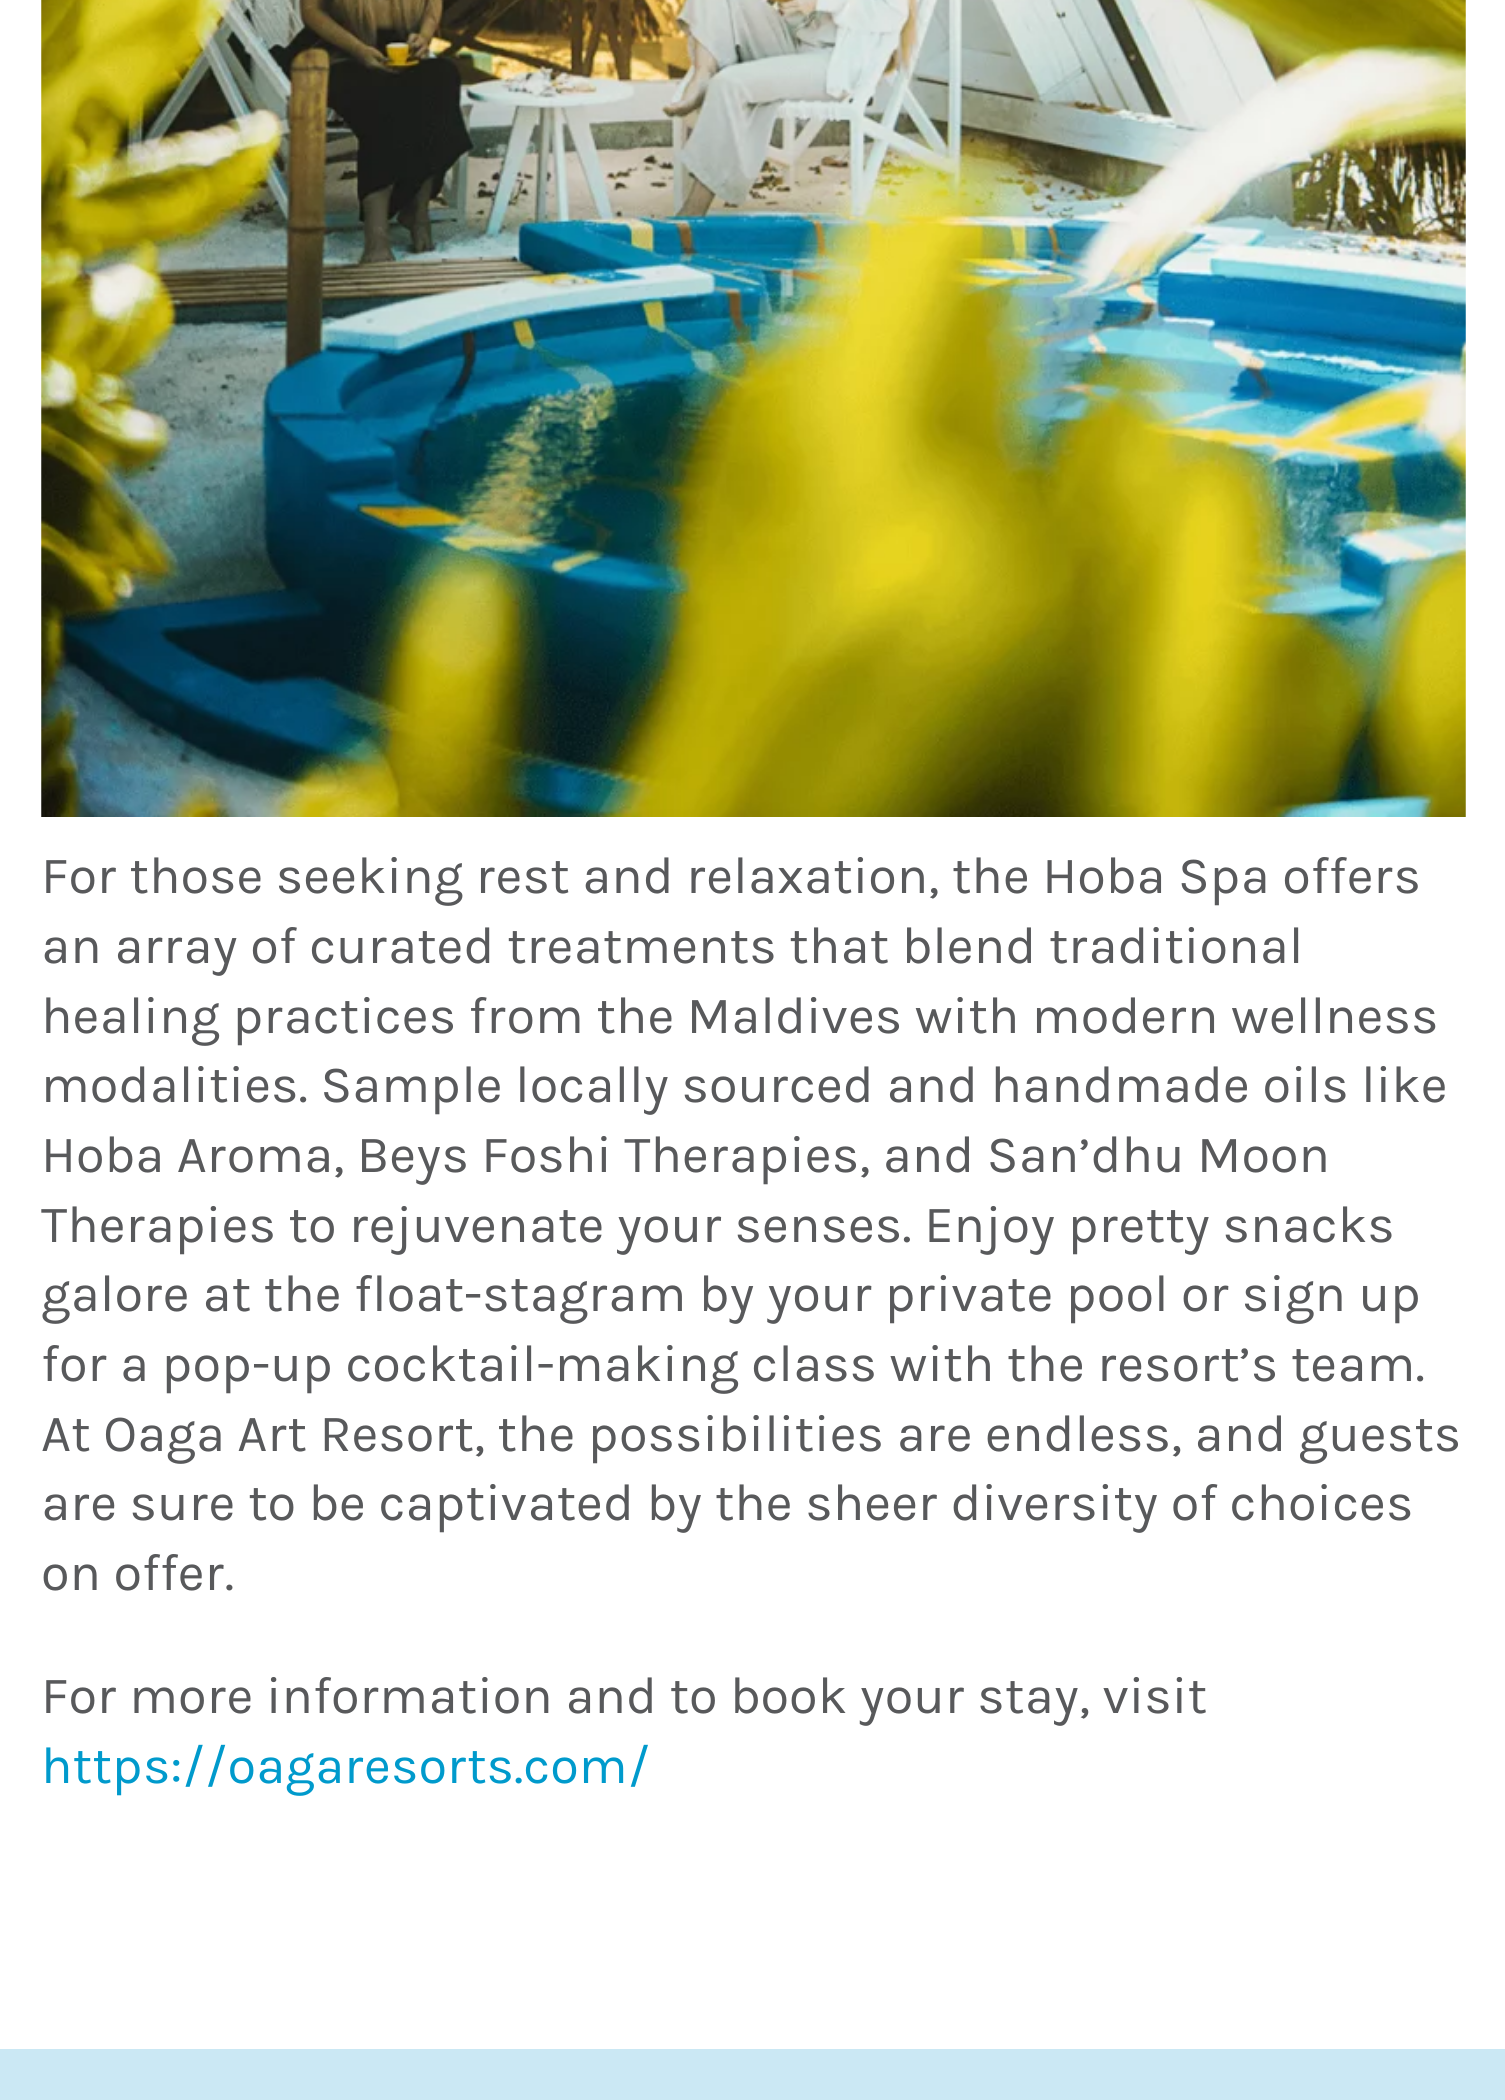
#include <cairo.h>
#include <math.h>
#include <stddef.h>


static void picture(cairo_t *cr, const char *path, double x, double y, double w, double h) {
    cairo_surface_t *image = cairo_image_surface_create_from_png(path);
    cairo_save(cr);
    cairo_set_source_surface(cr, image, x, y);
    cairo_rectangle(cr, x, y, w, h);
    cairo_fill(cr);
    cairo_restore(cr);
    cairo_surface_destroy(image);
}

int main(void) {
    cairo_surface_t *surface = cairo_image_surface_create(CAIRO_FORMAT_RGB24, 1505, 2100);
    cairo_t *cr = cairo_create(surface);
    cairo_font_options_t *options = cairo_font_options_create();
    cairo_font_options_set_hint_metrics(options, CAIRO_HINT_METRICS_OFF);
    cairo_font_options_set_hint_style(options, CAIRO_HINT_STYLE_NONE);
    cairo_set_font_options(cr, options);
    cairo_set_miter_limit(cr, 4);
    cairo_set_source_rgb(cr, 1, 1, 1);
    cairo_paint(cr);
    picture(cr, "img1.png", 41, 0, 1425, 817);
    cairo_select_font_face(cr, "Karla", CAIRO_FONT_SLANT_NORMAL, CAIRO_FONT_WEIGHT_NORMAL);
    cairo_set_font_size(cr, 52.25);
    cairo_set_source_rgb(cr, 0.345, 0.349, 0.357);
    cairo_move_to(cr, 41, 893);
    cairo_show_text(cr, "For those seeking rest and relaxation, the Hoba Spa offers");
    cairo_move_to(cr, 41, 963);
    cairo_show_text(cr, "an array of curated treatments that blend traditional");
    cairo_move_to(cr, 41, 1033);
    cairo_show_text(cr, "healing practices from the Maldives with modern wellness");
    cairo_move_to(cr, 41, 1102);
    cairo_show_text(cr, "modalities. Sample locally sourced and handmade oils like");
    cairo_move_to(cr, 41, 1172);
    cairo_show_text(cr, "Hoba Aroma, Beys Foshi Therapies, and San’dhu Moon");
    cairo_move_to(cr, 41, 1242);
    cairo_show_text(cr, "Therapies to rejuvenate your senses. Enjoy pretty snacks");
    cairo_move_to(cr, 41, 1311);
    cairo_show_text(cr, "galore at the float-stagram by your private pool or sign up");
    cairo_move_to(cr, 41, 1381);
    cairo_show_text(cr, "for a pop-up cocktail-making class with the resort’s team.");
    cairo_move_to(cr, 41, 1451);
    cairo_show_text(cr, "At Oaga Art Resort, the possibilities are endless, and guests");
    cairo_move_to(cr, 41, 1520);
    cairo_show_text(cr, "are sure to be captivated by the sheer diversity of choices");
    cairo_move_to(cr, 41, 1590);
    cairo_show_text(cr, "on offer.");
    cairo_move_to(cr, 41, 1713);
    cairo_show_text(cr, "For more information and to book your stay, visit");
    cairo_set_source_rgb(cr, 0, 0.604, 0.8);
    cairo_move_to(cr, 41, 1783);
    cairo_show_text(cr, "https://oagaresorts.com/");
    cairo_set_source_rgb(cr, 0.796, 0.91, 0.957);
    cairo_rectangle(cr, 0, 2049, 1505, 51);
    cairo_fill(cr);
    cairo_surface_write_to_png(surface, "page.png");
    cairo_font_options_destroy(options);
    cairo_destroy(cr);
    cairo_surface_destroy(surface);
    return 0;
}
